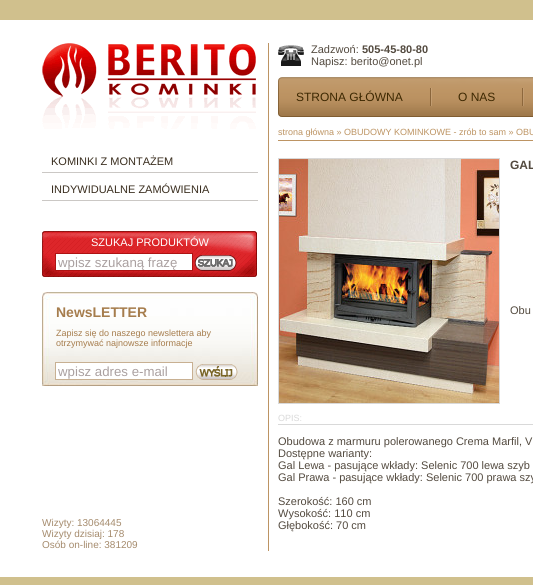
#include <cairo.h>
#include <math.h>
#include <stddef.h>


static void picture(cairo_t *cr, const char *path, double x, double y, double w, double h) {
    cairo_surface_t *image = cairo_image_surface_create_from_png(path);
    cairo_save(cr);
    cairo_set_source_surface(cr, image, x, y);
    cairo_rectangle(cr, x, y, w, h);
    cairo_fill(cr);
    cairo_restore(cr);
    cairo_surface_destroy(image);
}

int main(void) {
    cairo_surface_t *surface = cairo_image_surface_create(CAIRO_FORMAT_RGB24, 533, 585);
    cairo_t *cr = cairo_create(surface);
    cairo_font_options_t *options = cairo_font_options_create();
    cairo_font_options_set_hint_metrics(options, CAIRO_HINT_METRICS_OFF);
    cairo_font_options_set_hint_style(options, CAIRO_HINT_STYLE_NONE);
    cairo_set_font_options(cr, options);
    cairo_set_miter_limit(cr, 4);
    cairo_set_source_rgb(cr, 0.816, 0.753, 0.553);
    cairo_paint(cr);
    cairo_set_source_rgb(cr, 1, 1, 1);
    cairo_rectangle(cr, 0, 20, 533, 557);
    cairo_fill(cr);
    cairo_set_source_rgb(cr, 0.741, 0.58, 0.388);
    cairo_rectangle(cr, 268, 43, 1, 508);
    cairo_fill(cr);
    picture(cr, "img1.png", 42, 43, 214, 86);
    cairo_set_source_rgb(cr, 0.796, 0.784, 0.773);
    cairo_rectangle(cr, 42, 172, 216, 1);
    cairo_fill(cr);
    cairo_select_font_face(cr, "Liberation Sans", CAIRO_FONT_SLANT_NORMAL, CAIRO_FONT_WEIGHT_NORMAL);
    cairo_set_font_size(cr, 11);
    cairo_set_source_rgb(cr, 0.224, 0.176, 0.118);
    cairo_move_to(cr, 51, 165);
    cairo_show_text(cr, "KOMINKI Z MONTAŻEM");
    cairo_set_source_rgb(cr, 0.796, 0.784, 0.773);
    cairo_rectangle(cr, 42, 200, 216, 1);
    cairo_fill(cr);
    cairo_set_source_rgb(cr, 0.224, 0.176, 0.118);
    cairo_move_to(cr, 51, 193);
    cairo_show_text(cr, "INDYWIDUALNE ZAMÓWIENIA");
    picture(cr, "img2.png", 42, 231, 215, 46);
    cairo_set_source_rgb(cr, 1, 1, 1);
    cairo_move_to(cr, 91, 246);
    cairo_show_text(cr, "SZUKAJ PRODUKTÓW");
    cairo_rectangle(cr, 55.5, 253.5, 137, 17);
    cairo_fill_preserve(cr);
    cairo_set_source_rgb(cr, 0.682, 0.075, 0.078);
    cairo_set_line_width(cr, 1);
    cairo_stroke(cr);
    cairo_set_font_size(cr, 13.25);
    cairo_set_source_rgb(cr, 0.667, 0.627, 0.627);
    cairo_move_to(cr, 58, 267);
    cairo_show_text(cr, "wpisz szukaną frazę");
    picture(cr, "img3.png", 194, 255, 43, 16);
    picture(cr, "img4.png", 42, 292, 216, 94);
    cairo_select_font_face(cr, "Liberation Sans", CAIRO_FONT_SLANT_NORMAL, CAIRO_FONT_WEIGHT_BOLD);
    cairo_set_font_size(cr, 14);
    cairo_set_source_rgb(cr, 0.651, 0.49, 0.302);
    cairo_move_to(cr, 56, 317);
    cairo_show_text(cr, "NewsLETTER");
    cairo_select_font_face(cr, "Liberation Sans", CAIRO_FONT_SLANT_NORMAL, CAIRO_FONT_WEIGHT_NORMAL);
    cairo_set_font_size(cr, 9);
    cairo_move_to(cr, 56, 336);
    cairo_show_text(cr, "Zapisz się do naszego newslettera aby");
    cairo_move_to(cr, 56, 346);
    cairo_show_text(cr, "otrzymywać najnowsze informacje");
    cairo_set_source_rgb(cr, 1, 1, 1);
    cairo_rectangle(cr, 55.5, 362.5, 137, 17);
    cairo_fill_preserve(cr);
    cairo_set_source_rgb(cr, 0.784, 0.69, 0.573);
    cairo_stroke(cr);
    cairo_set_font_size(cr, 13.25);
    cairo_set_source_rgb(cr, 0.667, 0.627, 0.627);
    cairo_move_to(cr, 58, 376);
    cairo_show_text(cr, "wpisz adres e-mail");
    picture(cr, "img5.png", 195, 364, 43, 16);
    picture(cr, "img6.png", 278, 45, 26, 21);
    cairo_set_font_size(cr, 11);
    cairo_set_source_rgb(cr, 0.325, 0.29, 0.247);
    cairo_move_to(cr, 311, 53);
    cairo_show_text(cr, "Zadzwoń:");
    cairo_select_font_face(cr, "Liberation Sans", CAIRO_FONT_SLANT_NORMAL, CAIRO_FONT_WEIGHT_BOLD);
    cairo_move_to(cr, 362, 53);
    cairo_show_text(cr, "505-45-80-80");
    cairo_select_font_face(cr, "Liberation Sans", CAIRO_FONT_SLANT_NORMAL, CAIRO_FONT_WEIGHT_NORMAL);
    cairo_move_to(cr, 311, 65);
    cairo_show_text(cr, "Napisz: berito@onet.pl");
    picture(cr, "img7.png", 278, 77, 255, 40);
    picture(cr, "img8.png", 430, 88, 2, 18);
    cairo_set_font_size(cr, 12);
    cairo_set_source_rgb(cr, 0.239, 0.157, 0.004);
    cairo_move_to(cr, 296, 101);
    cairo_show_text(cr, "STRONA GŁÓWNA");
    picture(cr, "img9.png", 522, 88, 2, 18);
    cairo_move_to(cr, 458, 101);
    cairo_show_text(cr, "O NAS");
    cairo_set_source_rgb(cr, 0.741, 0.58, 0.388);
    cairo_rectangle(cr, 278, 140, 255, 1);
    cairo_fill(cr);
    cairo_set_font_size(cr, 9);
    cairo_move_to(cr, 278, 135);
    cairo_show_text(cr, "strona główna » OBUDOWY KOMINKOWE - zrób to sam » OBU");
    cairo_rectangle(cr, 278.5, 158.5, 221, 245);
    cairo_set_source_rgb(cr, 0.851, 0.851, 0.851);
    cairo_stroke(cr);
    picture(cr, "img10.png", 279, 159, 220, 244);
    cairo_select_font_face(cr, "Liberation Sans", CAIRO_FONT_SLANT_NORMAL, CAIRO_FONT_WEIGHT_BOLD);
    cairo_set_font_size(cr, 12);
    cairo_set_source_rgb(cr, 0.325, 0.29, 0.247);
    cairo_move_to(cr, 510, 169);
    cairo_show_text(cr, "GAL");
    cairo_select_font_face(cr, "Liberation Sans", CAIRO_FONT_SLANT_NORMAL, CAIRO_FONT_WEIGHT_NORMAL);
    cairo_set_font_size(cr, 11);
    cairo_move_to(cr, 510, 314);
    cairo_show_text(cr, "Obu");
    cairo_set_source_rgb(cr, 0.851, 0.851, 0.851);
    cairo_rectangle(cr, 278, 424, 255, 1);
    cairo_fill(cr);
    cairo_set_font_size(cr, 9);
    cairo_move_to(cr, 278, 421);
    cairo_show_text(cr, "OPIS:");
    cairo_set_font_size(cr, 11);
    cairo_set_source_rgb(cr, 0.325, 0.29, 0.247);
    cairo_move_to(cr, 278, 445);
    cairo_show_text(cr, "Obudowa z marmuru polerowanego Crema Marfil, V");
    cairo_move_to(cr, 278, 457);
    cairo_show_text(cr, "Dostępne warianty:");
    cairo_move_to(cr, 278, 469);
    cairo_show_text(cr, "Gal Lewa - pasujące wkłady: Selenic 700 lewa szyb");
    cairo_move_to(cr, 278, 481);
    cairo_show_text(cr, "Gal Prawa - pasujące wkłady: Selenic 700 prawa szy");
    cairo_move_to(cr, 278, 505);
    cairo_show_text(cr, "Szerokość: 160 cm");
    cairo_move_to(cr, 278, 517);
    cairo_show_text(cr, "Wysokość: 110 cm");
    cairo_move_to(cr, 278, 529);
    cairo_show_text(cr, "Głębokość: 70 cm");
    cairo_set_font_size(cr, 10);
    cairo_set_source_rgb(cr, 0.647, 0.545, 0.427);
    cairo_move_to(cr, 42, 526);
    cairo_show_text(cr, "Wizyty: 13064445");
    cairo_move_to(cr, 42, 537);
    cairo_show_text(cr, "Wizyty dzisiaj: 178");
    cairo_move_to(cr, 42, 548);
    cairo_show_text(cr, "Osób on-line: 381209");
    cairo_surface_write_to_png(surface, "page.png");
    cairo_font_options_destroy(options);
    cairo_destroy(cr);
    cairo_surface_destroy(surface);
    return 0;
}
